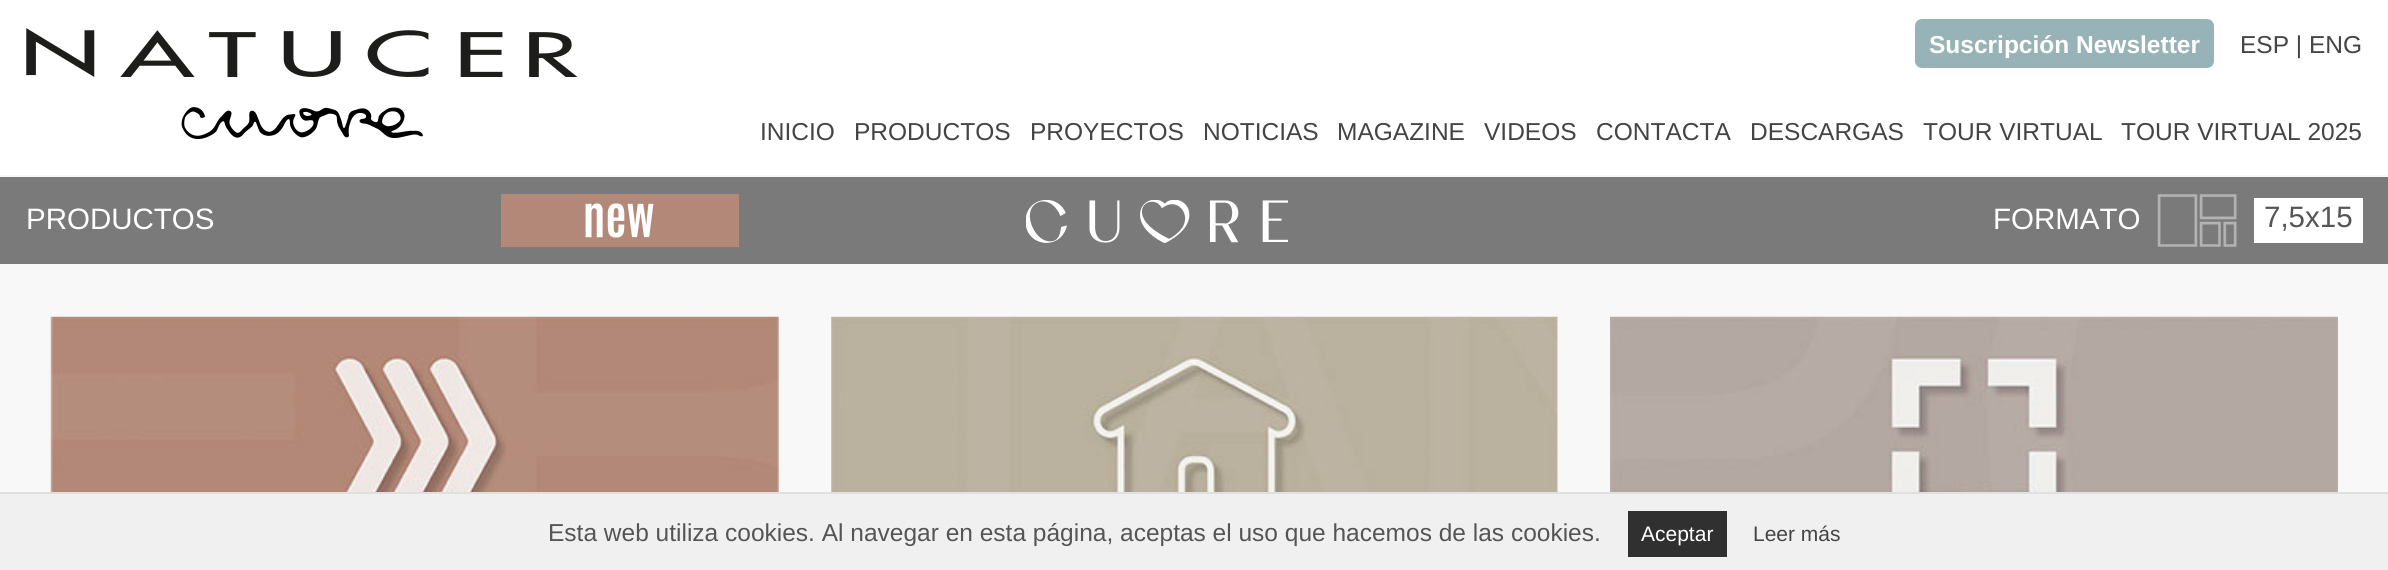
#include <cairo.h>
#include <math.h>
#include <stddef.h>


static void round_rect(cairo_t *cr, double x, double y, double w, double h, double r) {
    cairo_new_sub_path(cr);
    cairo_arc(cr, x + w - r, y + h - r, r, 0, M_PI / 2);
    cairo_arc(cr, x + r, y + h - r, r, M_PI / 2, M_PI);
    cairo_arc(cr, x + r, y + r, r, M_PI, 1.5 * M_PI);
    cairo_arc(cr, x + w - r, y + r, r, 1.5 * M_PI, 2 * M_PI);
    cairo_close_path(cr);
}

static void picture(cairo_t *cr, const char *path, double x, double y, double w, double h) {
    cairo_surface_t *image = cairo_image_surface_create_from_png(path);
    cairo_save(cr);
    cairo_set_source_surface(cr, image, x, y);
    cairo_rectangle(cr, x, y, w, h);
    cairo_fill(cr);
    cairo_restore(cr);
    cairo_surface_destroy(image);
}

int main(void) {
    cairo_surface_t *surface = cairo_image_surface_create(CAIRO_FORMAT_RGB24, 2388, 570);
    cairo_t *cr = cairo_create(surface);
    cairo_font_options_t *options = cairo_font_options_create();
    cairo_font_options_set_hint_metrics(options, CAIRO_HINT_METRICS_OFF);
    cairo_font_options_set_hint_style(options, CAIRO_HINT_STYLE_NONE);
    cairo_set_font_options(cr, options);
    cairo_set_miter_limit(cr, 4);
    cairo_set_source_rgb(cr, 0.969, 0.969, 0.969);
    cairo_paint(cr);
    cairo_set_source_rgb(cr, 1, 1, 1);
    cairo_rectangle(cr, 0, 0, 2388, 175);
    cairo_fill(cr);
    picture(cr, "img1.png", 26, 28, 552, 111);
    cairo_set_source_rgb(cr, 0.592, 0.702, 0.718);
    round_rect(cr, 1915, 19, 299, 49, 7);
    cairo_fill(cr);
    cairo_select_font_face(cr, "Liberation Sans", CAIRO_FONT_SLANT_NORMAL, CAIRO_FONT_WEIGHT_BOLD);
    cairo_set_font_size(cr, 24.5);
    cairo_set_source_rgb(cr, 1, 1, 1);
    cairo_move_to(cr, 1929, 53);
    cairo_show_text(cr, "Suscripción Newsletter");
    cairo_select_font_face(cr, "Liberation Sans", CAIRO_FONT_SLANT_NORMAL, CAIRO_FONT_WEIGHT_NORMAL);
    cairo_set_source_rgb(cr, 0.267, 0.267, 0.267);
    cairo_move_to(cr, 2240, 53);
    cairo_show_text(cr, "ESP | ENG");
    cairo_move_to(cr, 760, 140);
    cairo_show_text(cr, "INICIO");
    cairo_move_to(cr, 854, 140);
    cairo_show_text(cr, "PRODUCTOS");
    cairo_move_to(cr, 1030, 140);
    cairo_show_text(cr, "PROYECTOS");
    cairo_move_to(cr, 1203, 140);
    cairo_show_text(cr, "NOTICIAS");
    cairo_move_to(cr, 1337, 140);
    cairo_show_text(cr, "MAGAZINE");
    cairo_move_to(cr, 1484, 140);
    cairo_show_text(cr, "VIDEOS");
    cairo_move_to(cr, 1596, 140);
    cairo_show_text(cr, "CONTACTA");
    cairo_move_to(cr, 1750, 140);
    cairo_show_text(cr, "DESCARGAS");
    cairo_move_to(cr, 1923, 140);
    cairo_show_text(cr, "TOUR VIRTUAL");
    cairo_move_to(cr, 2121, 140);
    cairo_show_text(cr, "TOUR VIRTUAL 2025");
    cairo_set_source_rgb(cr, 0.478, 0.478, 0.478);
    cairo_rectangle(cr, 0, 177, 2388, 87);
    cairo_fill(cr);
    cairo_set_font_size(cr, 29.5);
    cairo_set_source_rgb(cr, 1, 1, 1);
    cairo_move_to(cr, 26, 229);
    cairo_show_text(cr, "PRODUCTOS");
    cairo_set_source_rgb(cr, 0.702, 0.533, 0.471);
    cairo_rectangle(cr, 501, 194, 238, 53);
    cairo_fill(cr);
    picture(cr, "img2.png", 585, 203, 69, 35);
    picture(cr, "img3.png", 1026, 200, 262, 43);
    cairo_set_source_rgb(cr, 1, 1, 1);
    cairo_move_to(cr, 1993, 229);
    cairo_show_text(cr, "FORMATO");
    picture(cr, "img4.png", 2157, 194, 80, 53);
    cairo_rectangle(cr, 2254, 198, 109, 45);
    cairo_fill(cr);
    cairo_set_source_rgb(cr, 0.333, 0.333, 0.333);
    cairo_move_to(cr, 2264, 227);
    cairo_show_text(cr, "7,5x15");
    picture(cr, "img5.png", 50, 316, 729, 176);
    picture(cr, "img6.png", 831, 316, 727, 176);
    picture(cr, "img7.png", 1610, 316, 728, 176);
    cairo_set_source_rgb(cr, 0.941, 0.941, 0.941);
    cairo_rectangle(cr, 0, 494, 2388, 76);
    cairo_fill(cr);
    cairo_set_source_rgb(cr, 0.878, 0.878, 0.878);
    cairo_rectangle(cr, 0, 492, 2388, 2);
    cairo_fill(cr);
    cairo_set_font_size(cr, 24.5);
    cairo_set_source_rgb(cr, 0.333, 0.333, 0.333);
    cairo_move_to(cr, 548, 541);
    cairo_show_text(cr, "Esta web utiliza cookies. Al navegar en esta página, aceptas el uso que hacemos de las cookies.");
    cairo_set_source_rgb(cr, 0.188, 0.188, 0.188);
    cairo_rectangle(cr, 1628, 511, 99, 46);
    cairo_fill(cr);
    cairo_set_font_size(cr, 21);
    cairo_set_source_rgb(cr, 1, 1, 1);
    cairo_move_to(cr, 1641, 541);
    cairo_show_text(cr, "Aceptar");
    cairo_set_source_rgb(cr, 0.267, 0.267, 0.267);
    cairo_move_to(cr, 1753, 541);
    cairo_show_text(cr, "Leer más");
    cairo_surface_write_to_png(surface, "page.png");
    cairo_font_options_destroy(options);
    cairo_destroy(cr);
    cairo_surface_destroy(surface);
    return 0;
}
